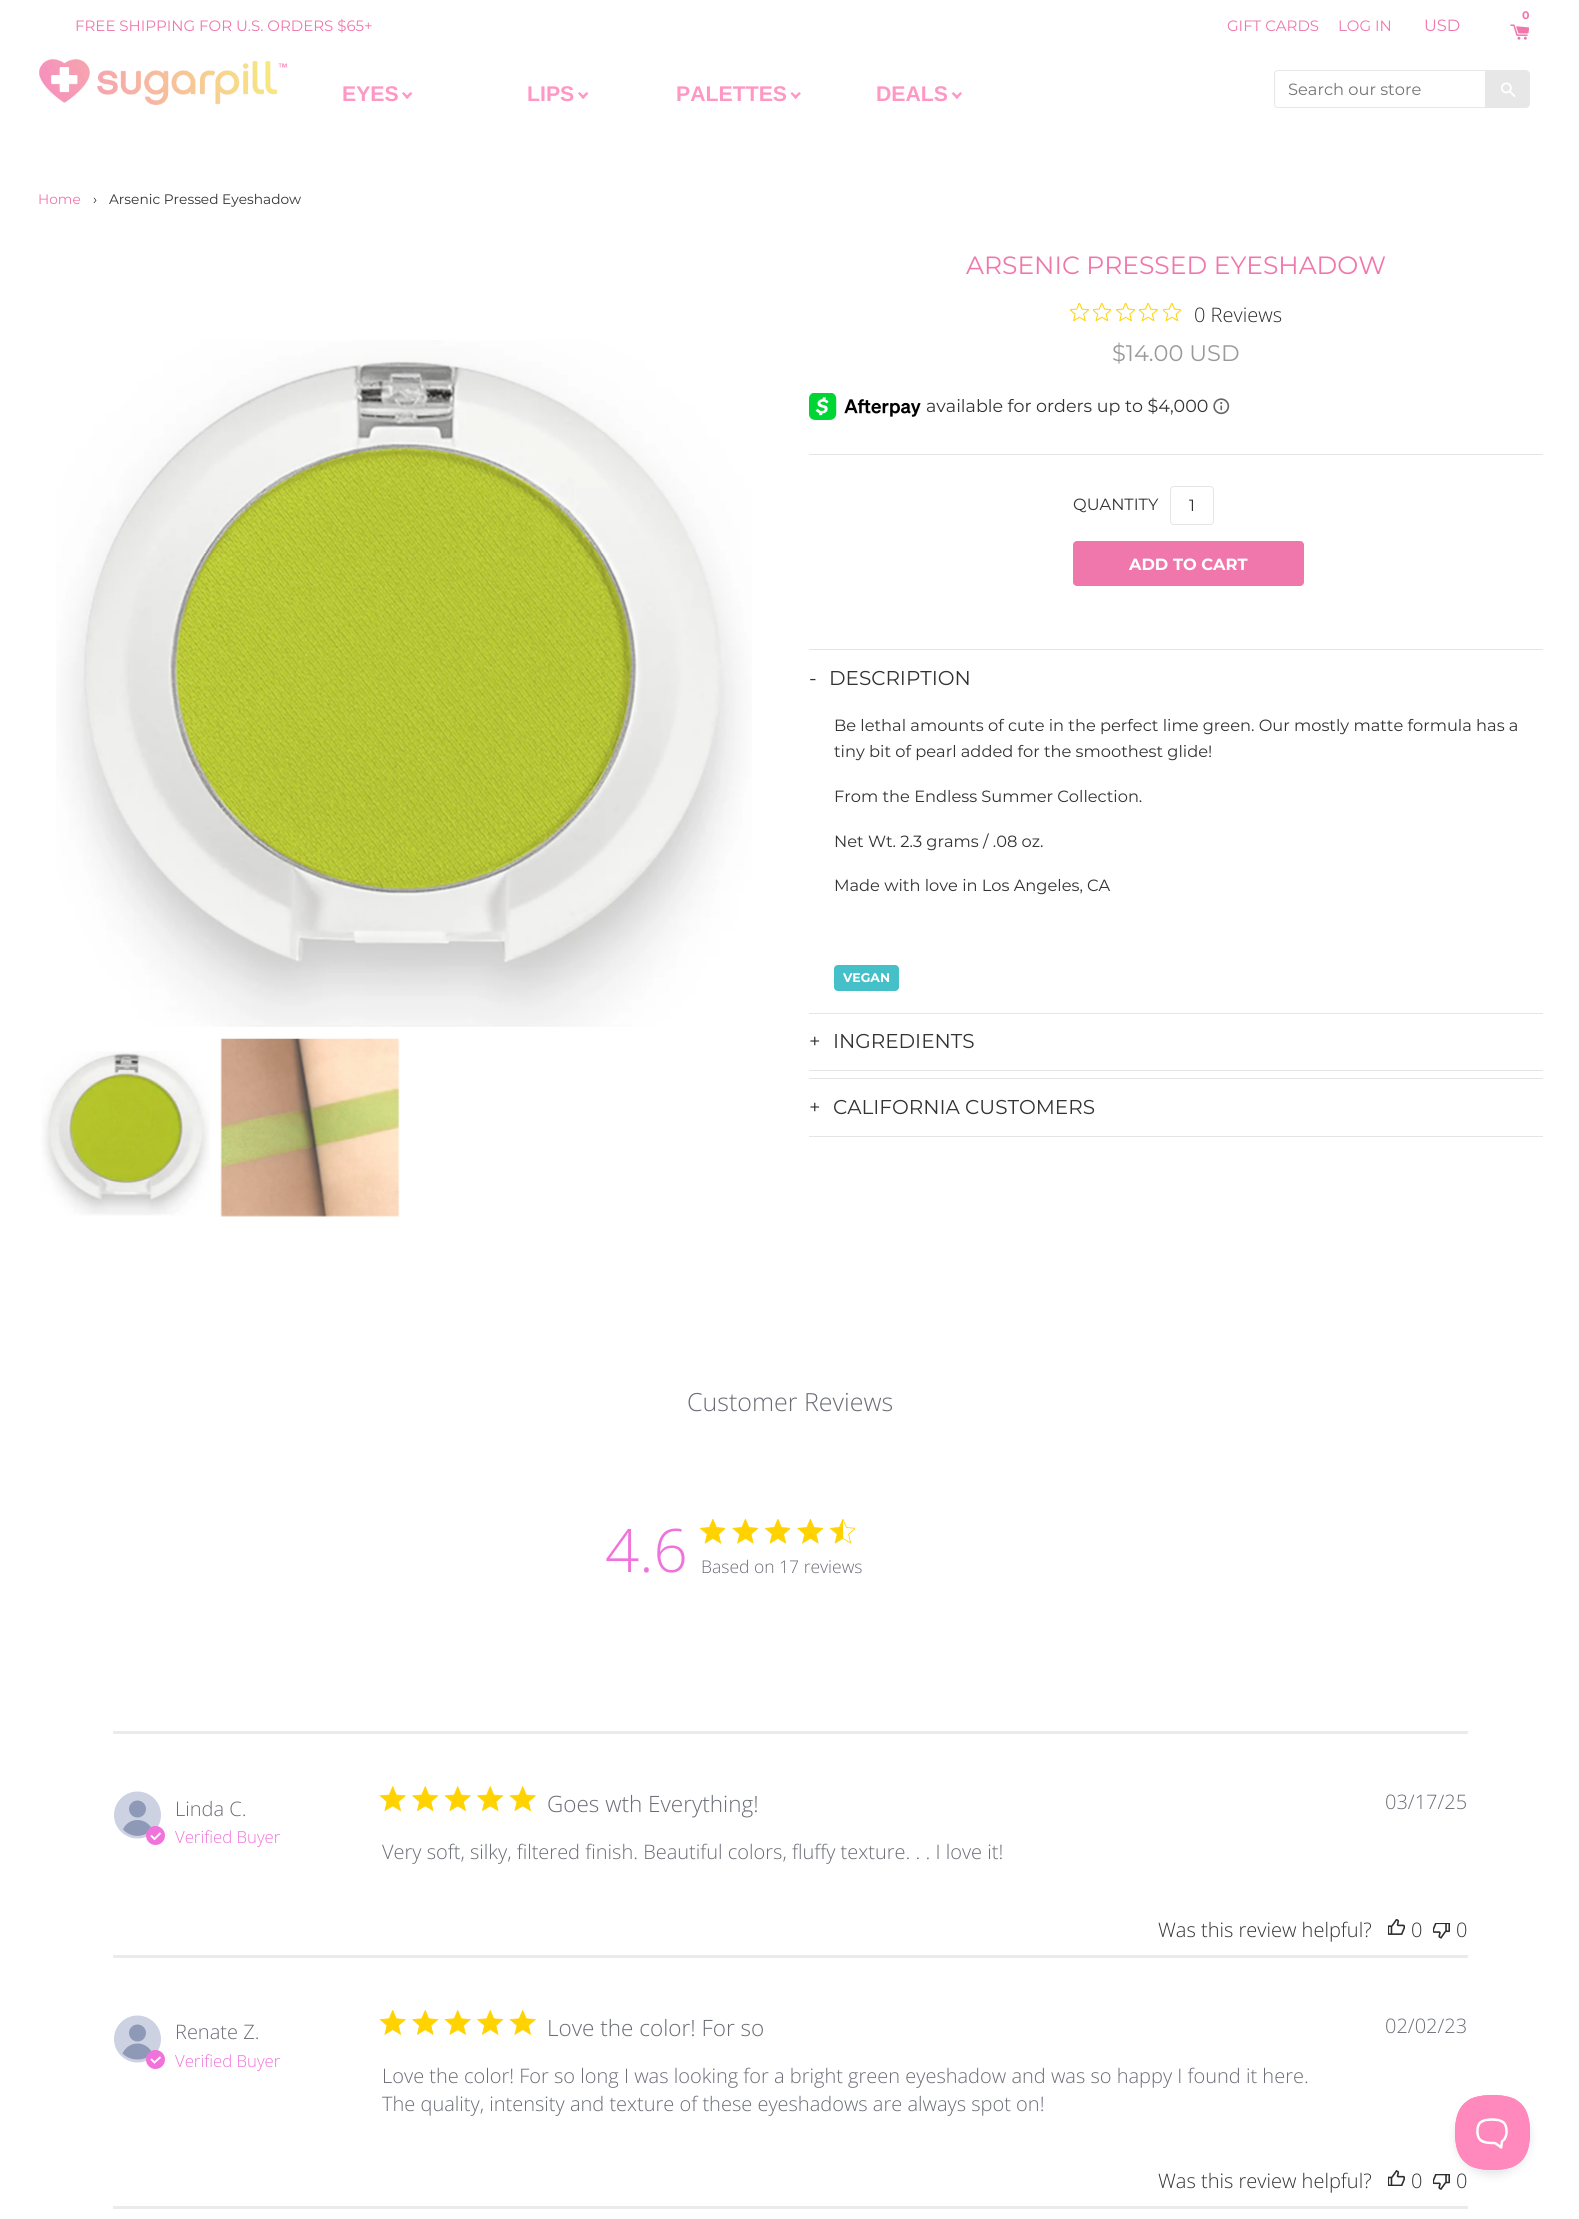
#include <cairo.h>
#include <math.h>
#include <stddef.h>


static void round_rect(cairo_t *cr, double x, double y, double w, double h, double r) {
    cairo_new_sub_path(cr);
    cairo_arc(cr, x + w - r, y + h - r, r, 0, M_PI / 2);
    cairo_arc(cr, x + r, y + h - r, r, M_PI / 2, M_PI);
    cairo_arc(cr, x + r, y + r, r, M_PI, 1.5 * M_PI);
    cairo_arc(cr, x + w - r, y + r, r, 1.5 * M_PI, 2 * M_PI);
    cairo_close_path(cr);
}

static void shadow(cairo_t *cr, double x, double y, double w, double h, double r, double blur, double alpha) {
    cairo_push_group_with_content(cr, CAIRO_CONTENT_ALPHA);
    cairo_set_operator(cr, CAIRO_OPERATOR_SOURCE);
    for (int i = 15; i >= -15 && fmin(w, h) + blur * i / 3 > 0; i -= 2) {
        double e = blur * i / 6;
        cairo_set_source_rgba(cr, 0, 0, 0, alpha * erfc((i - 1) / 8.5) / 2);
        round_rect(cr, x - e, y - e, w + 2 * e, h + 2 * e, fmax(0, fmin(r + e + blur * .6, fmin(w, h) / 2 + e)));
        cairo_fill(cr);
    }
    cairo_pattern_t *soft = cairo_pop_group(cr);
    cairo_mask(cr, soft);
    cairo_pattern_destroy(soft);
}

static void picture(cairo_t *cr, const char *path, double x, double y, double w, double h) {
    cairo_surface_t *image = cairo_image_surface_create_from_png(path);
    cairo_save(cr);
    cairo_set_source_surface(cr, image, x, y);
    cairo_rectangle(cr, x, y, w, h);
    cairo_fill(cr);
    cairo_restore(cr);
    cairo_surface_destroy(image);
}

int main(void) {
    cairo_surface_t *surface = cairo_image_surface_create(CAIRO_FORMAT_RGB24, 1579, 2219);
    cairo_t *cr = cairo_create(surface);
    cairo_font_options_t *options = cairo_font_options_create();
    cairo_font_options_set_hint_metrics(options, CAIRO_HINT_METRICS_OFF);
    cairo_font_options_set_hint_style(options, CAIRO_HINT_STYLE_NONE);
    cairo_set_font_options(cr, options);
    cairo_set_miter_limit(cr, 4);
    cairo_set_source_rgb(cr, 1, 1, 1);
    cairo_paint(cr);
    cairo_select_font_face(cr, "Montserrat", CAIRO_FONT_SLANT_NORMAL, CAIRO_FONT_WEIGHT_NORMAL);
    cairo_set_font_size(cr, 15);
    cairo_set_source_rgb(cr, 0.941, 0.467, 0.675);
    cairo_move_to(cr, 75, 31);
    cairo_show_text(cr, "FREE SHIPPING FOR U.S. ORDERS $65+");
    cairo_select_font_face(cr, "Montserrat", CAIRO_FONT_SLANT_NORMAL, CAIRO_FONT_WEIGHT_BOLD);
    cairo_set_font_size(cr, 11);
    cairo_move_to(cr, 1522, 19);
    cairo_show_text(cr, "0");
    picture(cr, "img1.png", 1510, 24, 20, 16);
    cairo_select_font_face(cr, "Montserrat", CAIRO_FONT_SLANT_NORMAL, CAIRO_FONT_WEIGHT_NORMAL);
    cairo_set_font_size(cr, 15);
    cairo_move_to(cr, 1227, 31);
    cairo_show_text(cr, "GIFT CARDS");
    cairo_move_to(cr, 1338, 31);
    cairo_show_text(cr, "LOG IN");
    cairo_set_font_size(cr, 16.25);
    cairo_move_to(cr, 1424, 31);
    cairo_show_text(cr, "USD");
    picture(cr, "img2.png", 39, 59, 249, 46);
    cairo_select_font_face(cr, "Liberation Sans", CAIRO_FONT_SLANT_NORMAL, CAIRO_FONT_WEIGHT_BOLD);
    cairo_set_font_size(cr, 21.25);
    cairo_set_source_rgb(cr, 1, 0.592, 0.769);
    cairo_move_to(cr, 342, 101);
    cairo_show_text(cr, "EYES");
    cairo_new_path(cr);
    cairo_move_to(cr, 410.5, 92);
    cairo_line_to(cr, 412.5, 93.5);
    cairo_line_to(cr, 407, 99);
    cairo_line_to(cr, 405.5, 97);
    cairo_close_path(cr);
    cairo_fill(cr);
    cairo_new_path(cr);
    cairo_move_to(cr, 403.5, 92);
    cairo_line_to(cr, 409, 97);
    cairo_line_to(cr, 407, 99);
    cairo_line_to(cr, 402, 93.5);
    cairo_close_path(cr);
    cairo_fill(cr);
    cairo_move_to(cr, 527, 101);
    cairo_show_text(cr, "LIPS");
    cairo_new_path(cr);
    cairo_move_to(cr, 586.5, 92);
    cairo_line_to(cr, 588.5, 93.5);
    cairo_line_to(cr, 583, 99);
    cairo_line_to(cr, 581.5, 97);
    cairo_close_path(cr);
    cairo_fill(cr);
    cairo_new_path(cr);
    cairo_move_to(cr, 579.5, 92);
    cairo_line_to(cr, 585, 97);
    cairo_line_to(cr, 583, 99);
    cairo_line_to(cr, 578, 93.5);
    cairo_close_path(cr);
    cairo_fill(cr);
    cairo_move_to(cr, 676, 101);
    cairo_show_text(cr, "PALETTES");
    cairo_new_path(cr);
    cairo_move_to(cr, 799, 92);
    cairo_line_to(cr, 801, 93.5);
    cairo_line_to(cr, 795.5, 99);
    cairo_line_to(cr, 794, 97);
    cairo_close_path(cr);
    cairo_fill(cr);
    cairo_new_path(cr);
    cairo_move_to(cr, 792, 92);
    cairo_line_to(cr, 797.5, 97);
    cairo_line_to(cr, 795.5, 99);
    cairo_line_to(cr, 790.5, 93.5);
    cairo_close_path(cr);
    cairo_fill(cr);
    cairo_move_to(cr, 876, 101);
    cairo_show_text(cr, "DEALS");
    cairo_new_path(cr);
    cairo_move_to(cr, 960.5, 92);
    cairo_line_to(cr, 962, 93.5);
    cairo_line_to(cr, 957, 99);
    cairo_line_to(cr, 955, 97);
    cairo_close_path(cr);
    cairo_fill(cr);
    cairo_new_path(cr);
    cairo_move_to(cr, 953.5, 92);
    cairo_line_to(cr, 958.5, 97);
    cairo_line_to(cr, 957, 99);
    cairo_line_to(cr, 951.5, 93.5);
    cairo_close_path(cr);
    cairo_fill(cr);
    cairo_new_path(cr);
    cairo_move_to(cr, 1278, 70.5);
    cairo_line_to(cr, 1485.5, 70.5);
    cairo_line_to(cr, 1485.5, 107.5);
    cairo_line_to(cr, 1278, 107.5);
    cairo_curve_to(cr, 1276, 107.5, 1274.5, 106, 1274.5, 104);
    cairo_line_to(cr, 1274.5, 74);
    cairo_curve_to(cr, 1274.5, 72, 1276, 70.5, 1278, 70.5);
    cairo_close_path(cr);
    cairo_set_source_rgb(cr, 0.906, 0.906, 0.906);
    cairo_set_line_width(cr, 1);
    cairo_stroke(cr);
    cairo_select_font_face(cr, "Montserrat", CAIRO_FONT_SLANT_NORMAL, CAIRO_FONT_WEIGHT_NORMAL);
    cairo_set_font_size(cr, 16.25);
    cairo_set_source_rgb(cr, 0.459, 0.459, 0.459);
    cairo_move_to(cr, 1288, 95);
    cairo_show_text(cr, "Search our store");
    cairo_set_source_rgb(cr, 0.906, 0.906, 0.906);
    cairo_new_path(cr);
    cairo_move_to(cr, 1486, 70);
    cairo_line_to(cr, 1526, 70);
    cairo_curve_to(cr, 1528, 70, 1530, 72, 1530, 74);
    cairo_line_to(cr, 1530, 104);
    cairo_curve_to(cr, 1530, 106, 1528, 108, 1526, 108);
    cairo_line_to(cr, 1486, 108);
    cairo_close_path(cr);
    cairo_fill(cr);
    picture(cr, "img3.png", 1501, 82, 15, 15);
    cairo_set_font_size(cr, 13.75);
    cairo_set_source_rgb(cr, 0.941, 0.467, 0.675);
    cairo_move_to(cr, 38, 204);
    cairo_show_text(cr, "Home");
    cairo_set_source_rgb(cr, 0.2, 0.2, 0.2);
    cairo_move_to(cr, 93, 204);
    cairo_show_text(cr, "›");
    cairo_move_to(cr, 109, 204);
    cairo_show_text(cr, "Arsenic Pressed Eyeshadow");
    picture(cr, "img4.png", 56, 340, 696, 687);
    picture(cr, "img5.png", 41, 1051, 169, 165);
    picture(cr, "img6.png", 220, 1038, 180, 179);
    cairo_set_font_size(cr, 25);
    cairo_set_source_rgb(cr, 0.941, 0.467, 0.675);
    cairo_move_to(cr, 966, 274);
    cairo_show_text(cr, "ARSENIC PRESSED EYESHADOW");
    picture(cr, "img7.png", 1070, 303, 19, 18);
    picture(cr, "img8.png", 1093, 303, 18, 18);
    picture(cr, "img9.png", 1116, 303, 19, 18);
    picture(cr, "img10.png", 1139, 303, 19, 18);
    picture(cr, "img8.png", 1163, 303, 18, 18);
    cairo_select_font_face(cr, "Open Sans Light", CAIRO_FONT_SLANT_NORMAL, CAIRO_FONT_WEIGHT_NORMAL);
    cairo_set_font_size(cr, 20);
    cairo_set_source_rgb(cr, 0.173, 0.173, 0.173);
    cairo_move_to(cr, 1194, 322);
    cairo_show_text(cr, "0 Reviews");
    cairo_select_font_face(cr, "Montserrat", CAIRO_FONT_SLANT_NORMAL, CAIRO_FONT_WEIGHT_NORMAL);
    cairo_set_font_size(cr, 22.5);
    cairo_set_source_rgb(cr, 0.604, 0.604, 0.604);
    cairo_move_to(cr, 1112, 361);
    cairo_show_text(cr, "$14.00 USD");
    picture(cr, "img11.png", 809, 393, 112, 27);
    cairo_set_font_size(cr, 17.5);
    cairo_set_source_rgb(cr, 0.2, 0.2, 0.2);
    cairo_move_to(cr, 926, 412);
    cairo_show_text(cr, "available for orders up to $4,000");
    picture(cr, "img12.png", 1213, 398, 17, 17);
    cairo_set_source_rgb(cr, 0.898, 0.898, 0.898);
    cairo_rectangle(cr, 809, 454, 734, 1);
    cairo_fill(cr);
    cairo_set_font_size(cr, 16.25);
    cairo_set_source_rgb(cr, 0.2, 0.2, 0.2);
    cairo_move_to(cr, 1073, 510);
    cairo_show_text(cr, "QUANTITY");
    round_rect(cr, 1170.5, 486.5, 43, 38, 3.5);
    cairo_set_source_rgb(cr, 0.898, 0.898, 0.898);
    cairo_stroke(cr);
    cairo_set_source_rgb(cr, 0.2, 0.2, 0.2);
    cairo_move_to(cr, 1189, 511);
    cairo_show_text(cr, "1");
    cairo_set_source_rgb(cr, 0.941, 0.467, 0.675);
    round_rect(cr, 1073, 541, 231, 45, 4);
    cairo_fill(cr);
    cairo_select_font_face(cr, "Montserrat", CAIRO_FONT_SLANT_NORMAL, CAIRO_FONT_WEIGHT_BOLD);
    cairo_set_source_rgb(cr, 1, 1, 1);
    cairo_move_to(cr, 1129, 570);
    cairo_show_text(cr, "ADD TO CART");
    cairo_set_source_rgb(cr, 0.898, 0.898, 0.898);
    cairo_rectangle(cr, 809, 649, 734, 1);
    cairo_fill(cr);
    cairo_select_font_face(cr, "Montserrat", CAIRO_FONT_SLANT_NORMAL, CAIRO_FONT_WEIGHT_NORMAL);
    cairo_set_font_size(cr, 20);
    cairo_set_source_rgb(cr, 0.2, 0.2, 0.2);
    cairo_move_to(cr, 809, 685);
    cairo_show_text(cr, "-");
    cairo_move_to(cr, 829, 685);
    cairo_show_text(cr, "DESCRIPTION");
    cairo_set_font_size(cr, 16.25);
    cairo_move_to(cr, 834, 731);
    cairo_show_text(cr, "Be lethal amounts of cute in the perfect lime green. Our mostly matte formula has a");
    cairo_move_to(cr, 834, 757);
    cairo_show_text(cr, "tiny bit of pearl added for the smoothest glide!");
    cairo_move_to(cr, 834, 802);
    cairo_show_text(cr, "From the Endless Summer Collection.");
    cairo_move_to(cr, 834, 847);
    cairo_show_text(cr, "Net Wt. 2.3 grams / .08 oz.");
    cairo_move_to(cr, 834, 891);
    cairo_show_text(cr, "Made with love in Los Angeles, CA");
    cairo_set_source_rgb(cr, 0.271, 0.753, 0.784);
    round_rect(cr, 834, 965, 65, 26, 4);
    cairo_fill(cr);
    cairo_select_font_face(cr, "Montserrat", CAIRO_FONT_SLANT_NORMAL, CAIRO_FONT_WEIGHT_BOLD);
    cairo_set_font_size(cr, 12.5);
    cairo_set_source_rgb(cr, 1, 1, 1);
    cairo_move_to(cr, 843, 982);
    cairo_show_text(cr, "VEGAN");
    cairo_set_source_rgb(cr, 0.898, 0.898, 0.898);
    cairo_rectangle(cr, 809, 1013, 734, 1);
    cairo_fill(cr);
    cairo_rectangle(cr, 809, 1070, 734, 1);
    cairo_fill(cr);
    cairo_select_font_face(cr, "Montserrat", CAIRO_FONT_SLANT_NORMAL, CAIRO_FONT_WEIGHT_NORMAL);
    cairo_set_font_size(cr, 20);
    cairo_set_source_rgb(cr, 0.2, 0.2, 0.2);
    cairo_move_to(cr, 809, 1048);
    cairo_show_text(cr, "+");
    cairo_move_to(cr, 833, 1048);
    cairo_show_text(cr, "INGREDIENTS");
    cairo_set_source_rgb(cr, 0.898, 0.898, 0.898);
    cairo_rectangle(cr, 809, 1078, 734, 1);
    cairo_fill(cr);
    cairo_rectangle(cr, 809, 1136, 734, 1);
    cairo_fill(cr);
    cairo_set_source_rgb(cr, 0.2, 0.2, 0.2);
    cairo_move_to(cr, 809, 1114);
    cairo_show_text(cr, "+");
    cairo_move_to(cr, 833, 1114);
    cairo_show_text(cr, "CALIFORNIA CUSTOMERS");
    cairo_select_font_face(cr, "Open Sans Light", CAIRO_FONT_SLANT_NORMAL, CAIRO_FONT_WEIGHT_NORMAL);
    cairo_set_font_size(cr, 25);
    cairo_set_source_rgb(cr, 0.42, 0.427, 0.463);
    cairo_move_to(cr, 687, 1411);
    cairo_show_text(cr, "Customer Reviews");
    cairo_set_font_size(cr, 60);
    cairo_set_source_rgb(cr, 0.941, 0.447, 0.859);
    cairo_move_to(cr, 605, 1572);
    cairo_show_text(cr, "4.6");
    picture(cr, "img13.png", 699, 1519, 26, 25);
    picture(cr, "img14.png", 732, 1519, 26, 25);
    picture(cr, "img13.png", 764, 1519, 26, 25);
    picture(cr, "img14.png", 797, 1519, 26, 25);
    picture(cr, "img15.png", 829, 1519, 26, 25);
    cairo_set_font_size(cr, 17.5);
    cairo_set_source_rgb(cr, 0.42, 0.427, 0.463);
    cairo_move_to(cr, 701, 1573);
    cairo_show_text(cr, "Based on 17 reviews");
    cairo_set_source_rgb(cr, 0.918, 0.918, 0.918);
    cairo_rectangle(cr, 113, 1731, 1355, 3);
    cairo_fill(cr);
    cairo_set_source_rgb(cr, 0.8, 0.824, 0.882);
    cairo_arc(cr, 137.5, 1815, 23.5, 0, 2 * M_PI);
    cairo_fill(cr);
    cairo_set_source_rgb(cr, 0.553, 0.6, 0.714);
    cairo_arc(cr, 137.5, 1809, 8.5, 0, 2 * M_PI);
    cairo_fill(cr);
    cairo_new_path(cr);
    cairo_move_to(cr, 137.5, 1820);
    cairo_curve_to(cr, 144, 1820, 150, 1824, 152, 1829.5);
    cairo_curve_to(cr, 144, 1838, 131, 1838, 123, 1829.5);
    cairo_curve_to(cr, 125, 1824, 131, 1820, 137.5, 1820);
    cairo_close_path(cr);
    cairo_fill(cr);
    cairo_set_source_rgb(cr, 0.941, 0.447, 0.859);
    cairo_arc(cr, 155.5, 1835.5, 9.5, 0, 2 * M_PI);
    cairo_fill(cr);
    cairo_new_path(cr);
    cairo_move_to(cr, 151, 1835.5);
    cairo_line_to(cr, 154.5, 1839);
    cairo_line_to(cr, 160.5, 1833);
    cairo_set_source_rgb(cr, 1, 1, 1);
    cairo_set_line_width(cr, 1.9);
    cairo_stroke(cr);
    cairo_set_font_size(cr, 20);
    cairo_set_source_rgb(cr, 0.42, 0.427, 0.463);
    cairo_move_to(cr, 175, 1816);
    cairo_show_text(cr, "Linda C.");
    cairo_set_font_size(cr, 16.75);
    cairo_set_source_rgb(cr, 0.941, 0.447, 0.859);
    cairo_move_to(cr, 175, 1843);
    cairo_show_text(cr, "Verified Buyer");
    picture(cr, "img16.png", 379, 1786, 27, 26);
    picture(cr, "img17.png", 411, 1786, 28, 26);
    picture(cr, "img16.png", 444, 1786, 27, 26);
    picture(cr, "img17.png", 476, 1786, 28, 26);
    picture(cr, "img16.png", 509, 1786, 27, 26);
    cairo_set_font_size(cr, 22.5);
    cairo_set_source_rgb(cr, 0.42, 0.427, 0.463);
    cairo_move_to(cr, 547, 1812);
    cairo_show_text(cr, "Goes wth Everything!");
    cairo_set_font_size(cr, 20);
    cairo_move_to(cr, 382, 1859);
    cairo_show_text(cr, "Very soft, silky, filtered finish. Beautiful colors, fluffy texture. . . I love it!");
    cairo_move_to(cr, 1385, 1809);
    cairo_show_text(cr, "03/17/25");
    cairo_set_source_rgb(cr, 0.2, 0.2, 0.2);
    cairo_move_to(cr, 1158, 1937);
    cairo_show_text(cr, "Was this review helpful?");
    picture(cr, "img18.png", 1388, 1919, 17, 16);
    cairo_move_to(cr, 1411, 1937);
    cairo_show_text(cr, "0");
    picture(cr, "img19.png", 1433, 1923, 17, 16);
    cairo_move_to(cr, 1456, 1937);
    cairo_show_text(cr, "0");
    cairo_set_source_rgb(cr, 0.918, 0.918, 0.918);
    cairo_rectangle(cr, 113, 1955, 1355, 3);
    cairo_fill(cr);
    cairo_set_source_rgb(cr, 0.8, 0.824, 0.882);
    cairo_arc(cr, 137.5, 2039, 23.5, 0, 2 * M_PI);
    cairo_fill(cr);
    cairo_set_source_rgb(cr, 0.553, 0.6, 0.714);
    cairo_arc(cr, 137.5, 2033, 8.5, 0, 2 * M_PI);
    cairo_fill(cr);
    cairo_new_path(cr);
    cairo_move_to(cr, 137.5, 2043.5);
    cairo_curve_to(cr, 144, 2043.5, 150, 2047.5, 152.5, 2053.5);
    cairo_curve_to(cr, 144.5, 2061.5, 130.5, 2061.5, 122.5, 2053.5);
    cairo_curve_to(cr, 125, 2047.5, 131, 2043.5, 137.5, 2043.5);
    cairo_close_path(cr);
    cairo_fill(cr);
    cairo_set_source_rgb(cr, 0.941, 0.447, 0.859);
    cairo_arc(cr, 155.5, 2059.5, 9.5, 0, 2 * M_PI);
    cairo_fill(cr);
    cairo_new_path(cr);
    cairo_move_to(cr, 151, 2059);
    cairo_line_to(cr, 154.5, 2062.5);
    cairo_line_to(cr, 160.5, 2057);
    cairo_set_source_rgb(cr, 1, 1, 1);
    cairo_stroke(cr);
    cairo_set_source_rgb(cr, 0.42, 0.427, 0.463);
    cairo_move_to(cr, 175, 2039);
    cairo_show_text(cr, "Renate Z.");
    cairo_set_font_size(cr, 16.75);
    cairo_set_source_rgb(cr, 0.941, 0.447, 0.859);
    cairo_move_to(cr, 175, 2067);
    cairo_show_text(cr, "Verified Buyer");
    picture(cr, "img20.png", 379, 2010, 27, 25);
    picture(cr, "img21.png", 411, 2010, 28, 25);
    picture(cr, "img20.png", 444, 2010, 27, 25);
    picture(cr, "img21.png", 476, 2010, 28, 25);
    picture(cr, "img20.png", 509, 2010, 27, 25);
    cairo_set_font_size(cr, 22.5);
    cairo_set_source_rgb(cr, 0.42, 0.427, 0.463);
    cairo_move_to(cr, 547, 2036);
    cairo_show_text(cr, "Love the color! For so");
    cairo_set_font_size(cr, 20);
    cairo_move_to(cr, 382, 2083);
    cairo_show_text(cr, "Love the color! For so long I was looking for a bright green eyeshadow and was so happy I found it here.");
    cairo_move_to(cr, 382, 2111);
    cairo_show_text(cr, "The quality, intensity and texture of these eyeshadows are always spot on!");
    cairo_move_to(cr, 1385, 2033);
    cairo_show_text(cr, "02/02/23");
    cairo_set_source_rgb(cr, 0.2, 0.2, 0.2);
    cairo_move_to(cr, 1158, 2188);
    cairo_show_text(cr, "Was this review helpful?");
    picture(cr, "img22.png", 1388, 2170, 17, 16);
    cairo_move_to(cr, 1411, 2188);
    cairo_show_text(cr, "0");
    picture(cr, "img23.png", 1433, 2174, 17, 16);
    cairo_move_to(cr, 1456, 2188);
    cairo_show_text(cr, "0");
    cairo_set_source_rgb(cr, 0.918, 0.918, 0.918);
    cairo_rectangle(cr, 113, 2206, 1355, 3);
    cairo_fill(cr);
    cairo_set_source_rgb(cr, 0, 0, 0);
    shadow(cr, 1455, 2100, 75, 75, 37.5, 4.5, 0.1);
    picture(cr, "img24.png", 1455, 2095, 75, 75);
    cairo_surface_write_to_png(surface, "page.png");
    cairo_font_options_destroy(options);
    cairo_destroy(cr);
    cairo_surface_destroy(surface);
    return 0;
}
